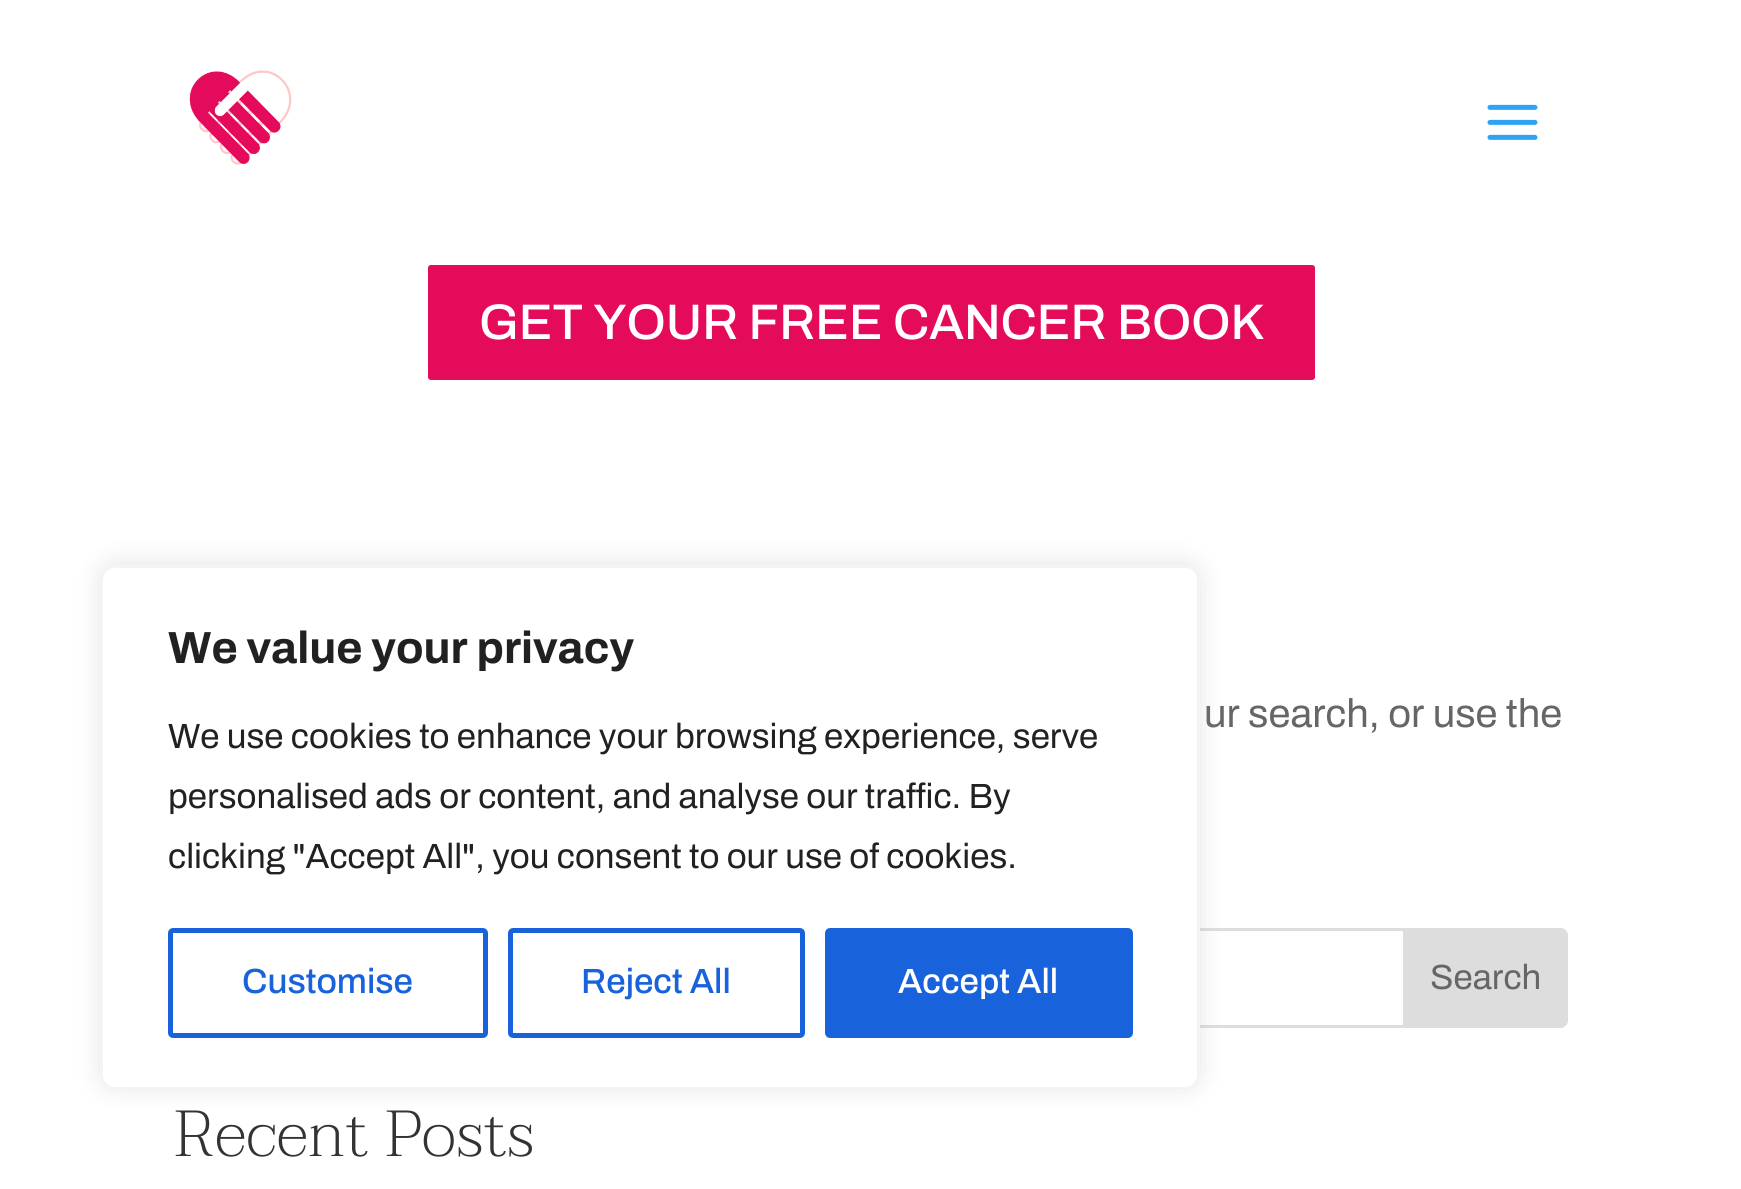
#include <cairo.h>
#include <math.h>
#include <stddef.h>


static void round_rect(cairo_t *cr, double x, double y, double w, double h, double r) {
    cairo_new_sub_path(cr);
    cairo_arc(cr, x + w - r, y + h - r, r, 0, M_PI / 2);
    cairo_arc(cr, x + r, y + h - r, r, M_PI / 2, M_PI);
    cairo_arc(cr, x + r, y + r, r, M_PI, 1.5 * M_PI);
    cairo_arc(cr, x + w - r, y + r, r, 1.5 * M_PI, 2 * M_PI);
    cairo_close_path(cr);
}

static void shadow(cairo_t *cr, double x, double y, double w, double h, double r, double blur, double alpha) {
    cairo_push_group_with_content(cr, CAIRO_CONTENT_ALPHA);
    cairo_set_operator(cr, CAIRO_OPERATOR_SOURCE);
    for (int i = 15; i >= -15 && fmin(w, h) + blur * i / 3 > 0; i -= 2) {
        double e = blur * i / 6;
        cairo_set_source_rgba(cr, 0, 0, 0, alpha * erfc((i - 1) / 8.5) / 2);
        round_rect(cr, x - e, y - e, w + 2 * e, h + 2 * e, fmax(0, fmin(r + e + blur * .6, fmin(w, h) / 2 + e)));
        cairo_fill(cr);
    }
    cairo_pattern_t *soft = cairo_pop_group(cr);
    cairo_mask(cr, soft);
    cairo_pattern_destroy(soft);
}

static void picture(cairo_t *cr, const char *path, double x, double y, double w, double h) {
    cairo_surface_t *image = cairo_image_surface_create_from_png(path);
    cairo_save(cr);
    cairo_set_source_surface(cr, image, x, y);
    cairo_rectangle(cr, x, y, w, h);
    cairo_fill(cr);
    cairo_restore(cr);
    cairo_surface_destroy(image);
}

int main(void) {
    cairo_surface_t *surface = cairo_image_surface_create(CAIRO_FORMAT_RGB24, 1741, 1189);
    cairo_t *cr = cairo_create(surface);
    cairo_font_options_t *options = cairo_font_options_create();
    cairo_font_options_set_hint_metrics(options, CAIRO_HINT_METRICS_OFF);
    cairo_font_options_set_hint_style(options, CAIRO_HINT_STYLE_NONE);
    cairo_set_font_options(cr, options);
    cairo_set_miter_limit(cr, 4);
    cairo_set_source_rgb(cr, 1, 1, 1);
    cairo_paint(cr);
    picture(cr, "img1.png", 189, 70, 103, 95);
    picture(cr, "img2.png", 1487, 104, 51, 36);
    cairo_set_source_rgb(cr, 0.898, 0.043, 0.357);
    round_rect(cr, 425.5, 262.5, 892, 120, 5.5);
    cairo_fill_preserve(cr);
    cairo_set_source_rgb(cr, 1, 1, 1);
    cairo_set_line_width(cr, 5);
    cairo_stroke(cr);
    cairo_select_font_face(cr, "Archivo Medium", CAIRO_FONT_SLANT_NORMAL, CAIRO_FONT_WEIGHT_NORMAL);
    cairo_set_font_size(cr, 50);
    cairo_move_to(cr, 479, 339);
    cairo_show_text(cr, "GET YOUR FREE CANCER BOOK");
    cairo_select_font_face(cr, "Archivo", CAIRO_FONT_SLANT_NORMAL, CAIRO_FONT_WEIGHT_NORMAL);
    cairo_set_font_size(cr, 40);
    cairo_set_source_rgb(cr, 0.4, 0.4, 0.4);
    cairo_move_to(cr, 1204, 727);
    cairo_show_text(cr, "ur search, or use the");
    round_rect(cr, 176.5, 929.5, 1390, 97, 6.5);
    cairo_set_source_rgb(cr, 0.867, 0.867, 0.867);
    cairo_set_line_width(cr, 3);
    cairo_stroke(cr);
    cairo_new_path(cr);
    cairo_move_to(cr, 1404.5, 929.5);
    cairo_line_to(cr, 1560, 929.5);
    cairo_curve_to(cr, 1563.5, 929.5, 1566.5, 932.5, 1566.5, 936);
    cairo_line_to(cr, 1566.5, 1020);
    cairo_curve_to(cr, 1566.5, 1023.5, 1563.5, 1026.5, 1560, 1026.5);
    cairo_line_to(cr, 1404.5, 1026.5);
    cairo_close_path(cr);
    cairo_fill_preserve(cr);
    cairo_stroke(cr);
    cairo_set_font_size(cr, 35);
    cairo_set_source_rgb(cr, 0.4, 0.4, 0.4);
    cairo_move_to(cr, 1430, 989);
    cairo_show_text(cr, "Search");
    cairo_select_font_face(cr, "Taviraj ExtraLight", CAIRO_FONT_SLANT_NORMAL, CAIRO_FONT_WEIGHT_NORMAL);
    cairo_set_font_size(cr, 65);
    cairo_set_source_rgb(cr, 0.2, 0.2, 0.2);
    cairo_move_to(cr, 174, 1156);
    cairo_show_text(cr, "Recent Posts");
    cairo_set_source_rgb(cr, 0.675, 0.671, 0.671);
    shadow(cr, 100, 563, 1100, 525, 15, 12.5, 0.3);
    cairo_set_source_rgb(cr, 1, 1, 1);
    round_rect(cr, 101.5, 566.5, 1097, 522, 13.5);
    cairo_fill_preserve(cr);
    cairo_set_source_rgb(cr, 0.957, 0.957, 0.957);
    cairo_stroke(cr);
    cairo_select_font_face(cr, "Archivo", CAIRO_FONT_SLANT_NORMAL, CAIRO_FONT_WEIGHT_BOLD);
    cairo_set_font_size(cr, 45);
    cairo_set_source_rgb(cr, 0.129, 0.129, 0.129);
    cairo_move_to(cr, 168, 663);
    cairo_show_text(cr, "We value your privacy");
    cairo_select_font_face(cr, "Archivo", CAIRO_FONT_SLANT_NORMAL, CAIRO_FONT_WEIGHT_NORMAL);
    cairo_set_font_size(cr, 35);
    cairo_move_to(cr, 168, 748);
    cairo_show_text(cr, "We use cookies to enhance your browsing experience, serve");
    cairo_move_to(cr, 168, 808);
    cairo_show_text(cr, "personalised ads or content, and analyse our traffic. By");
    cairo_move_to(cr, 168, 868);
    cairo_show_text(cr, "clicking \"Accept All\", you consent to our use of cookies.");
    round_rect(cr, 170.5, 930.5, 315, 105, 2.5);
    cairo_set_source_rgb(cr, 0.094, 0.388, 0.863);
    cairo_set_line_width(cr, 5);
    cairo_stroke(cr);
    cairo_select_font_face(cr, "Archivo Medium", CAIRO_FONT_SLANT_NORMAL, CAIRO_FONT_WEIGHT_NORMAL);
    cairo_move_to(cr, 242, 993);
    cairo_show_text(cr, "Customise");
    round_rect(cr, 510.5, 930.5, 292, 105, 2.5);
    cairo_stroke(cr);
    cairo_move_to(cr, 581, 993);
    cairo_show_text(cr, "Reject All");
    round_rect(cr, 827.5, 930.5, 303, 105, 2.5);
    cairo_fill_preserve(cr);
    cairo_stroke(cr);
    cairo_set_source_rgb(cr, 1, 1, 1);
    cairo_move_to(cr, 898, 993);
    cairo_show_text(cr, "Accept All");
    cairo_surface_write_to_png(surface, "page.png");
    cairo_font_options_destroy(options);
    cairo_destroy(cr);
    cairo_surface_destroy(surface);
    return 0;
}
